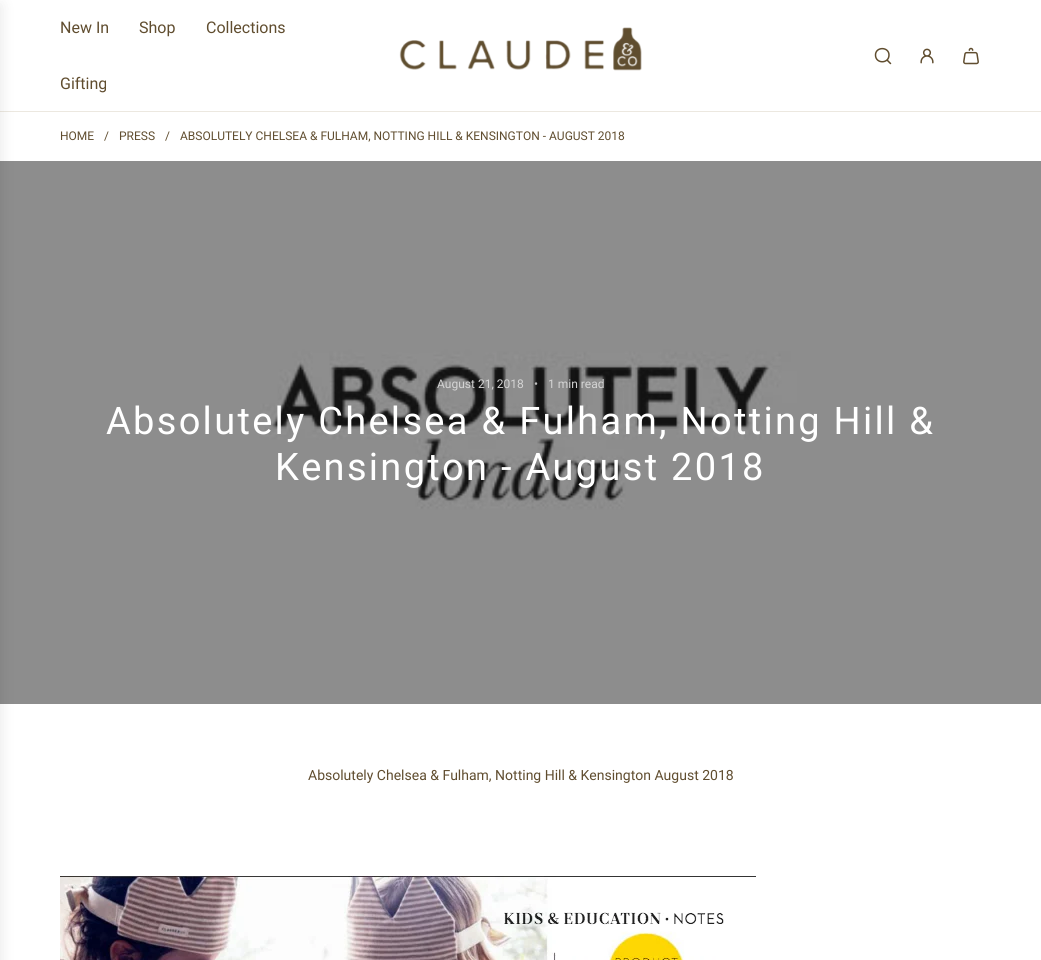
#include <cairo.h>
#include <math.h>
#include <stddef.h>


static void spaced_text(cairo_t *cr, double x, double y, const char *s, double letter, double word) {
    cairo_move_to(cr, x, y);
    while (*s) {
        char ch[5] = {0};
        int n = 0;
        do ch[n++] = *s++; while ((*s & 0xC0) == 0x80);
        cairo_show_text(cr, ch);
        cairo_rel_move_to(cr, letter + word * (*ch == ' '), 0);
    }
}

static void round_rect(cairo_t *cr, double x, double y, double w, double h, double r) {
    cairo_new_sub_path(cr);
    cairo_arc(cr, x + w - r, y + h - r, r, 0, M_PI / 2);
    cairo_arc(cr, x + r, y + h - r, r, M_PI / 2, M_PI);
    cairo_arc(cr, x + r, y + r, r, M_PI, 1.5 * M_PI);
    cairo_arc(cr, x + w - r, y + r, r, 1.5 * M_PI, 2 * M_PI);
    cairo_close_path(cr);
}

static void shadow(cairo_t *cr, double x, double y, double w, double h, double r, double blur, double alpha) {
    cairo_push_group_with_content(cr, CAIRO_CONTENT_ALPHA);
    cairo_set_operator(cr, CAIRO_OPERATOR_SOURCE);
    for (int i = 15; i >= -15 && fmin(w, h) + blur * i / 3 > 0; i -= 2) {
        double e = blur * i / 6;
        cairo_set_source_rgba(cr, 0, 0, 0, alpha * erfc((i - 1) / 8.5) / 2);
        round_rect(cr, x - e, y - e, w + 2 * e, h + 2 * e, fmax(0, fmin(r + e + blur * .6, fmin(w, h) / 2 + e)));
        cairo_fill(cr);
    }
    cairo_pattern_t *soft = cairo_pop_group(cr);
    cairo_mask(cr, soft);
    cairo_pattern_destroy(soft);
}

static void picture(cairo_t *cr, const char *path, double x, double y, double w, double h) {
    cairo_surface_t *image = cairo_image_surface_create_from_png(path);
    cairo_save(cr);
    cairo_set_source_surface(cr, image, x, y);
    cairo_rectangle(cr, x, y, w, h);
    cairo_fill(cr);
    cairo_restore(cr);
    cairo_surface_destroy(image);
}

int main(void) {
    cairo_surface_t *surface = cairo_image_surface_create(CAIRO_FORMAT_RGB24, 1041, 960);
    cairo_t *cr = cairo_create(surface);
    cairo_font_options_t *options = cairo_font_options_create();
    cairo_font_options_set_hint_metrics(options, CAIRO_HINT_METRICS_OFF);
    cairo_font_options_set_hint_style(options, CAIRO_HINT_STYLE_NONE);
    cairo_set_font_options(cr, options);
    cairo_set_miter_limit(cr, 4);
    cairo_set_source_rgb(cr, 1, 1, 1);
    cairo_paint(cr);
    cairo_set_source_rgb(cr, 0.922, 0.91, 0.878);
    cairo_rectangle(cr, 0, 111, 1041, 1);
    cairo_fill(cr);
    picture(cr, "img4.png", 0, 161, 1041, 543);
    cairo_set_source_rgb(cr, 0, 0, 0);
    shadow(cr, -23, 5, 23, 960, 0, 7.5, 0.1);
    cairo_select_font_face(cr, "Roboto", CAIRO_FONT_SLANT_NORMAL, CAIRO_FONT_WEIGHT_NORMAL);
    cairo_set_font_size(cr, 16);
    cairo_set_source_rgb(cr, 0.376, 0.302, 0.184);
    cairo_move_to(cr, 60, 33);
    cairo_show_text(cr, "New In");
    cairo_move_to(cr, 139, 33);
    cairo_show_text(cr, "Shop");
    cairo_move_to(cr, 206, 33);
    cairo_show_text(cr, "Collections");
    cairo_move_to(cr, 60, 89);
    cairo_show_text(cr, "Gifting");
    picture(cr, "img1.png", 399, 27, 243, 44);
    cairo_new_path(cr);
    cairo_move_to(cr, 887, 60);
    cairo_line_to(cr, 890.5, 63.5);
    cairo_move_to(cr, 875.5, 55);
    cairo_curve_to(cr, 875.5, 64, 889, 64, 889, 55);
    cairo_curve_to(cr, 889, 46.5, 875.5, 46.5, 875.5, 55);
    cairo_close_path(cr);
    cairo_set_line_width(cr, 1.5);
    cairo_set_line_cap(cr, CAIRO_LINE_CAP_ROUND);
    cairo_set_line_join(cr, CAIRO_LINE_JOIN_ROUND);
    cairo_stroke(cr);
    picture(cr, "img2.png", 920, 48, 14, 16);
    picture(cr, "img3.png", 963, 47, 16, 18);
    cairo_set_font_size(cr, 12);
    cairo_move_to(cr, 60, 140);
    cairo_show_text(cr, "HOME");
    cairo_move_to(cr, 104, 140);
    cairo_show_text(cr, "/");
    cairo_move_to(cr, 119, 140);
    cairo_show_text(cr, "PRESS");
    cairo_move_to(cr, 165, 140);
    cairo_show_text(cr, "/");
    cairo_move_to(cr, 180, 140);
    cairo_show_text(cr, "ABSOLUTELY CHELSEA & FULHAM, NOTTING HILL & KENSINGTON - AUGUST 2018");
    cairo_set_source_rgb(cr, 0.831, 0.831, 0.831);
    cairo_move_to(cr, 437, 388);
    cairo_show_text(cr, "August 21, 2018");
    cairo_set_source_rgb(cr, 0.753, 0.753, 0.753);
    cairo_move_to(cr, 534, 388);
    cairo_show_text(cr, "•");
    cairo_set_source_rgb(cr, 0.831, 0.831, 0.831);
    cairo_move_to(cr, 548, 388);
    cairo_show_text(cr, "1 min read");
    cairo_set_font_size(cr, 38);
    cairo_set_source_rgb(cr, 1, 1, 1);
    spaced_text(cr, 106, 434, "Absolutely Chelsea & Fulham, Notting Hill &", 2.3, 0);
    spaced_text(cr, 275, 480, "Kensington - August 2018", 2.3, 0);
    cairo_set_font_size(cr, 14);
    cairo_set_source_rgb(cr, 0.376, 0.302, 0.184);
    cairo_move_to(cr, 308, 780);
    cairo_show_text(cr, "Absolutely Chelsea & Fulham, Notting Hill & Kensington August 2018");
    picture(cr, "img5.png", 60, 876, 696, 84);
    cairo_surface_write_to_png(surface, "page.png");
    cairo_font_options_destroy(options);
    cairo_destroy(cr);
    cairo_surface_destroy(surface);
    return 0;
}
